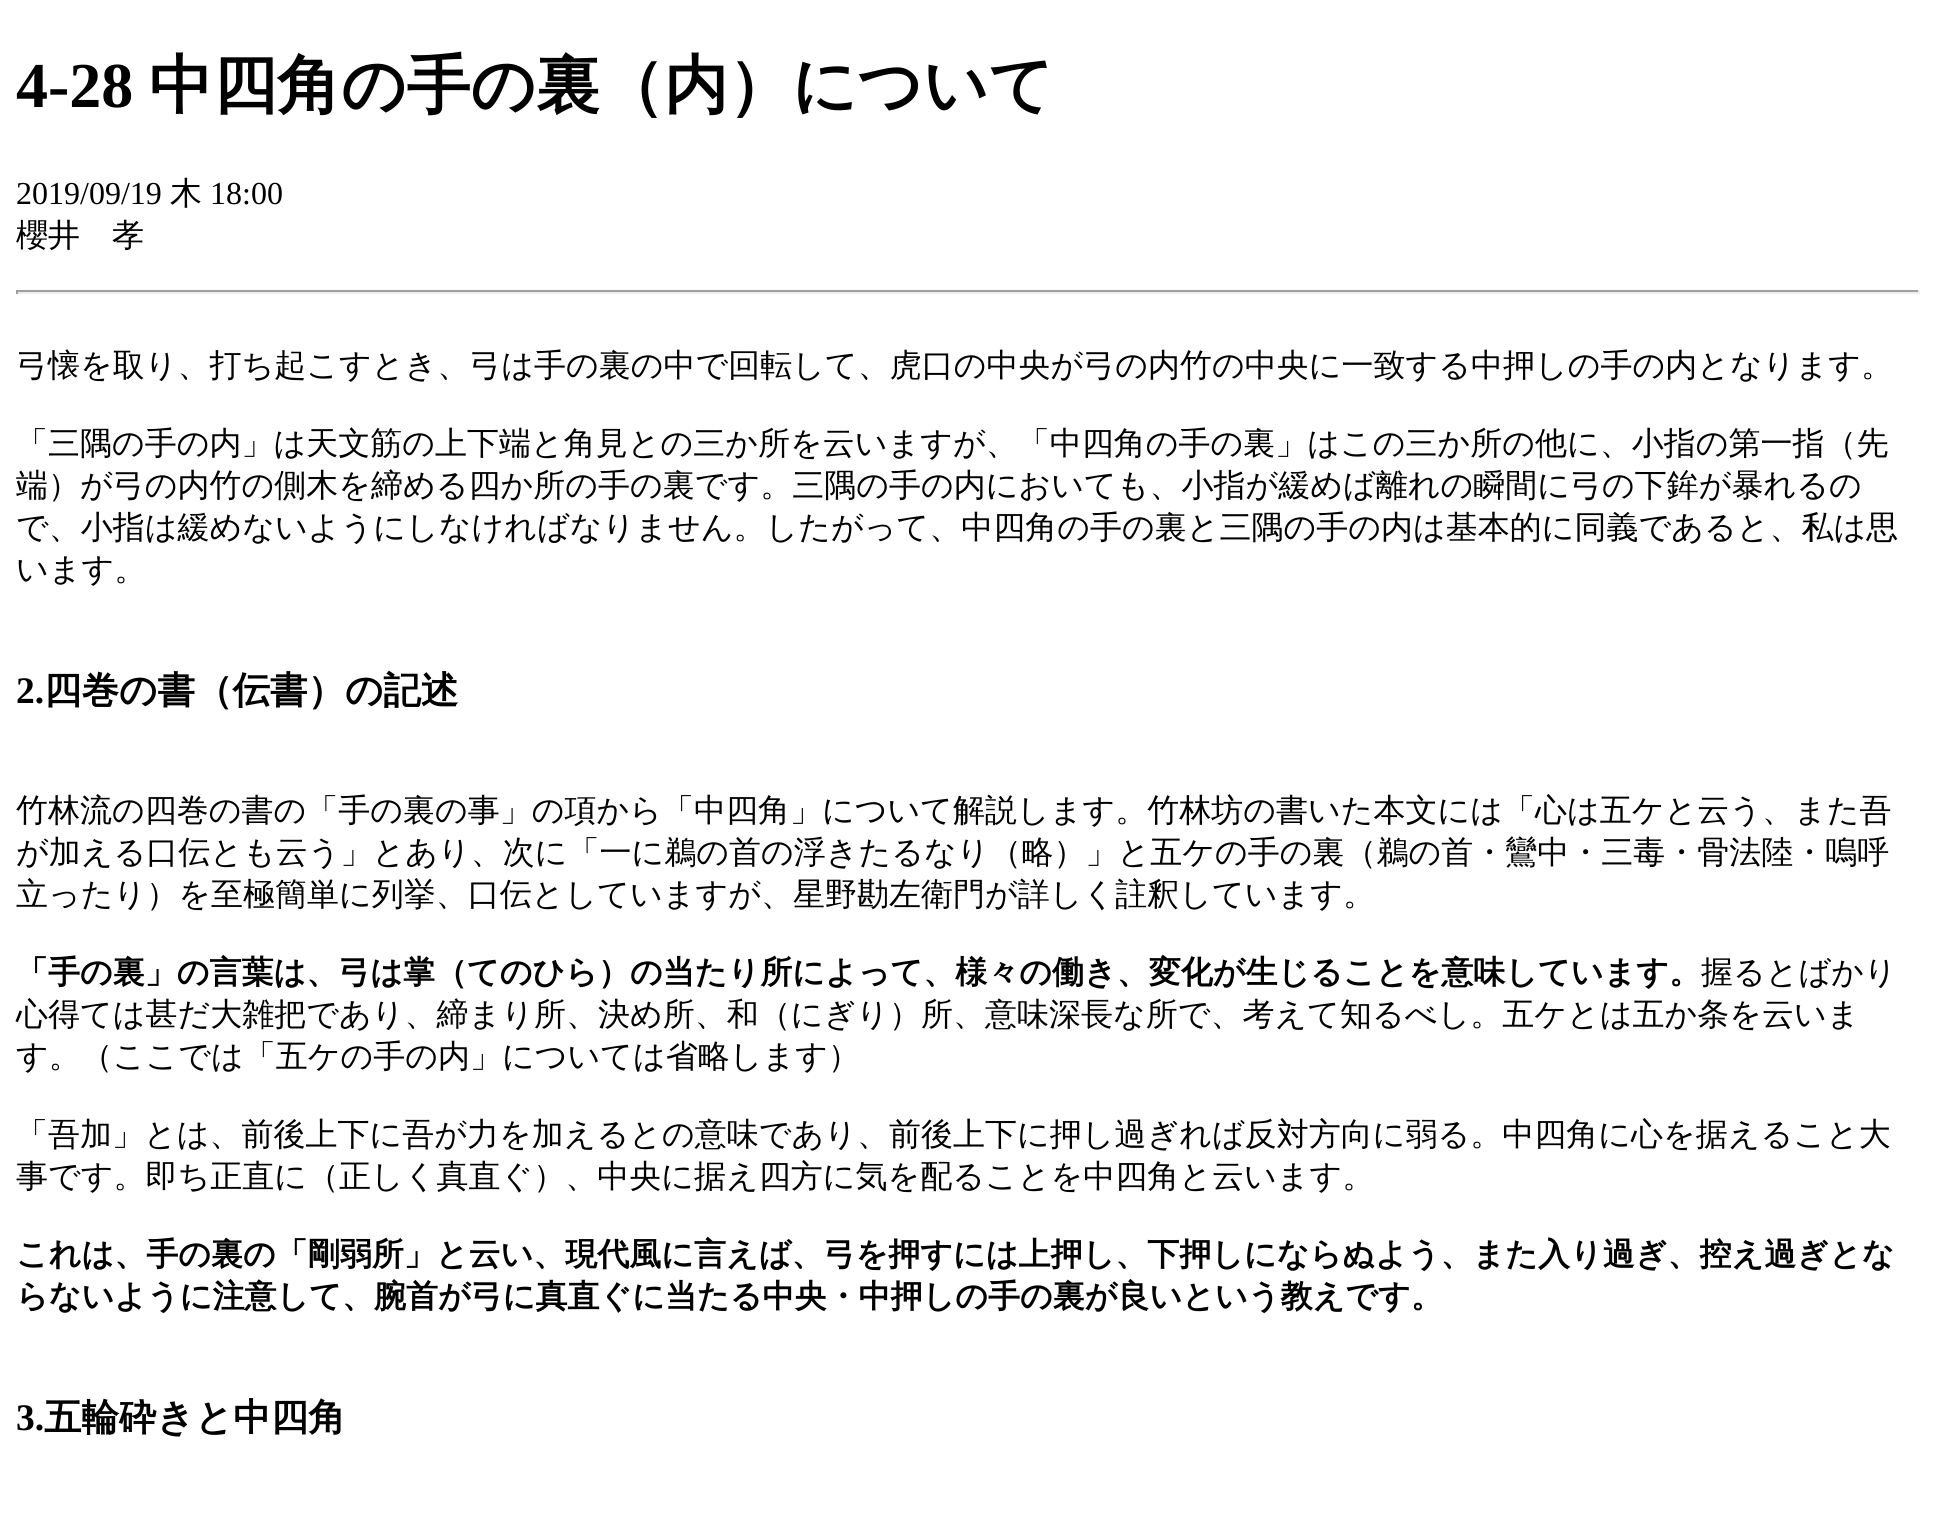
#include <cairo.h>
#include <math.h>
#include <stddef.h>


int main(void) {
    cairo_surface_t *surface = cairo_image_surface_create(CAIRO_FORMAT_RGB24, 1936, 1523);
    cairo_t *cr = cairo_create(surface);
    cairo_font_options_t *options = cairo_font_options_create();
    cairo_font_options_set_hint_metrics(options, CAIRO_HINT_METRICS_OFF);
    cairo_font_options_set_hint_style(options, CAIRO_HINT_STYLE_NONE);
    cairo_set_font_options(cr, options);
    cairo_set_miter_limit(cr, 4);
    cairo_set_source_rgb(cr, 1, 1, 1);
    cairo_paint(cr);
    cairo_select_font_face(cr, "Liberation Serif", CAIRO_FONT_SLANT_NORMAL, CAIRO_FONT_WEIGHT_BOLD);
    cairo_set_font_size(cr, 64);
    cairo_set_source_rgb(cr, 0, 0, 0);
    cairo_move_to(cr, 16, 107);
    cairo_show_text(cr, "4-28");
    cairo_select_font_face(cr, "WenQuanYi Zen Hei", CAIRO_FONT_SLANT_NORMAL, CAIRO_FONT_WEIGHT_BOLD);
    cairo_move_to(cr, 149, 107);
    cairo_show_text(cr, "中四角の手の裏（内）について");
    cairo_select_font_face(cr, "Liberation Serif", CAIRO_FONT_SLANT_NORMAL, CAIRO_FONT_WEIGHT_NORMAL);
    cairo_set_font_size(cr, 32);
    cairo_move_to(cr, 16, 204);
    cairo_show_text(cr, "2019/09/19");
    cairo_select_font_face(cr, "WenQuanYi Zen Hei Medium", CAIRO_FONT_SLANT_NORMAL, CAIRO_FONT_WEIGHT_NORMAL);
    cairo_move_to(cr, 170, 204);
    cairo_show_text(cr, "木");
    cairo_select_font_face(cr, "Liberation Serif", CAIRO_FONT_SLANT_NORMAL, CAIRO_FONT_WEIGHT_NORMAL);
    cairo_move_to(cr, 210, 204);
    cairo_show_text(cr, "18:00");
    cairo_select_font_face(cr, "WenQuanYi Zen Hei Medium", CAIRO_FONT_SLANT_NORMAL, CAIRO_FONT_WEIGHT_NORMAL);
    cairo_move_to(cr, 16, 246);
    cairo_show_text(cr, "櫻井　孝");
    cairo_set_source_rgb(cr, 0.624, 0.624, 0.624);
    cairo_rectangle(cr, 16, 290, 1904, 2);
    cairo_fill(cr);
    cairo_set_source_rgb(cr, 0.933, 0.933, 0.933);
    cairo_rectangle(cr, 1918, 290, 2, 4);
    cairo_fill(cr);
    cairo_rectangle(cr, 16, 292, 1904, 2);
    cairo_fill(cr);
    cairo_set_source_rgb(cr, 0.624, 0.624, 0.624);
    cairo_rectangle(cr, 16, 290, 2, 4);
    cairo_fill(cr);
    cairo_set_source_rgb(cr, 0, 0, 0);
    cairo_move_to(cr, 16, 376);
    cairo_show_text(cr, "弓懐を取り、打ち起こすとき、弓は手の裏の中で回転して、虎口の中央が弓の内竹の中央に一致する中押しの手の内となります。");
    cairo_move_to(cr, 16, 454);
    cairo_show_text(cr, "「三隅の手の内」は天文筋の上下端と角見との三か所を云いますが、「中四角の手の裏」はこの三か所の他に、小指の第一指（先");
    cairo_move_to(cr, 16, 496);
    cairo_show_text(cr, "端）が弓の内竹の側木を締める四か所の手の裏です。三隅の手の内においても、小指が緩めば離れの瞬間に弓の下鉾が暴れるの");
    cairo_move_to(cr, 16, 538);
    cairo_show_text(cr, "で、小指は緩めないようにしなければなりません。したがって、中四角の手の裏と三隅の手の内は基本的に同義であると、私は思");
    cairo_move_to(cr, 16, 580);
    cairo_show_text(cr, "います。");
    cairo_select_font_face(cr, "Liberation Serif", CAIRO_FONT_SLANT_NORMAL, CAIRO_FONT_WEIGHT_BOLD);
    cairo_set_font_size(cr, 37.5);
    cairo_move_to(cr, 16, 703);
    cairo_show_text(cr, "2.");
    cairo_select_font_face(cr, "WenQuanYi Zen Hei", CAIRO_FONT_SLANT_NORMAL, CAIRO_FONT_WEIGHT_BOLD);
    cairo_move_to(cr, 44, 703);
    cairo_show_text(cr, "四巻の書（伝書）の記述");
    cairo_select_font_face(cr, "WenQuanYi Zen Hei Medium", CAIRO_FONT_SLANT_NORMAL, CAIRO_FONT_WEIGHT_NORMAL);
    cairo_set_font_size(cr, 32);
    cairo_move_to(cr, 16, 821);
    cairo_show_text(cr, "竹林流の四巻の書の「手の裏の事」の項から「中四角」について解説します。竹林坊の書いた本文には「心は五ケと云う、また吾");
    cairo_move_to(cr, 16, 863);
    cairo_show_text(cr, "が加える口伝とも云う」とあり、次に「一に鵜の首の浮きたるなり（略）」と五ケの手の裏（鵜の首・鸞中・三毒・骨法陸・嗚呼");
    cairo_move_to(cr, 16, 905);
    cairo_show_text(cr, "立ったり）を至極簡単に列挙、口伝としていますが、星野勘左衛門が詳しく註釈しています。");
    cairo_select_font_face(cr, "WenQuanYi Zen Hei", CAIRO_FONT_SLANT_NORMAL, CAIRO_FONT_WEIGHT_BOLD);
    cairo_move_to(cr, 16, 983);
    cairo_show_text(cr, "「手の裏」の言葉は、弓は掌（てのひら）の当たり所によって、様々の働き、変化が生じることを意味しています。");
    cairo_select_font_face(cr, "WenQuanYi Zen Hei Medium", CAIRO_FONT_SLANT_NORMAL, CAIRO_FONT_WEIGHT_NORMAL);
    cairo_move_to(cr, 1701, 983);
    cairo_show_text(cr, "握るとばかり");
    cairo_move_to(cr, 16, 1025);
    cairo_show_text(cr, "心得ては甚だ大雑把であり、締まり所、決め所、和（にぎり）所、意味深長な所で、考えて知るべし。五ケとは五か条を云いま");
    cairo_move_to(cr, 16, 1067);
    cairo_show_text(cr, "す。（ここでは「五ケの手の内」については省略します）");
    cairo_move_to(cr, 16, 1145);
    cairo_show_text(cr, "「吾加」とは、前後上下に吾が力を加えるとの意味であり、前後上下に押し過ぎれば反対方向に弱る。中四角に心を据えること大");
    cairo_move_to(cr, 16, 1187);
    cairo_show_text(cr, "事です。即ち正直に（正しく真直ぐ）、中央に据え四方に気を配ることを中四角と云います。");
    cairo_select_font_face(cr, "WenQuanYi Zen Hei", CAIRO_FONT_SLANT_NORMAL, CAIRO_FONT_WEIGHT_BOLD);
    cairo_move_to(cr, 16, 1265);
    cairo_show_text(cr, "これは、手の裏の「剛弱所」と云い、現代風に言えば、弓を押すには上押し、下押しにならぬよう、また入り過ぎ、控え過ぎとな");
    cairo_move_to(cr, 16, 1307);
    cairo_show_text(cr, "らないように注意して、腕首が弓に真直ぐに当たる中央・中押しの手の裏が良いという教えです。");
    cairo_select_font_face(cr, "Liberation Serif", CAIRO_FONT_SLANT_NORMAL, CAIRO_FONT_WEIGHT_BOLD);
    cairo_set_font_size(cr, 37.5);
    cairo_move_to(cr, 16, 1430);
    cairo_show_text(cr, "3.");
    cairo_select_font_face(cr, "WenQuanYi Zen Hei", CAIRO_FONT_SLANT_NORMAL, CAIRO_FONT_WEIGHT_BOLD);
    cairo_move_to(cr, 44, 1430);
    cairo_show_text(cr, "五輪砕きと中四角");
    cairo_surface_write_to_png(surface, "page.png");
    cairo_font_options_destroy(options);
    cairo_destroy(cr);
    cairo_surface_destroy(surface);
    return 0;
}
